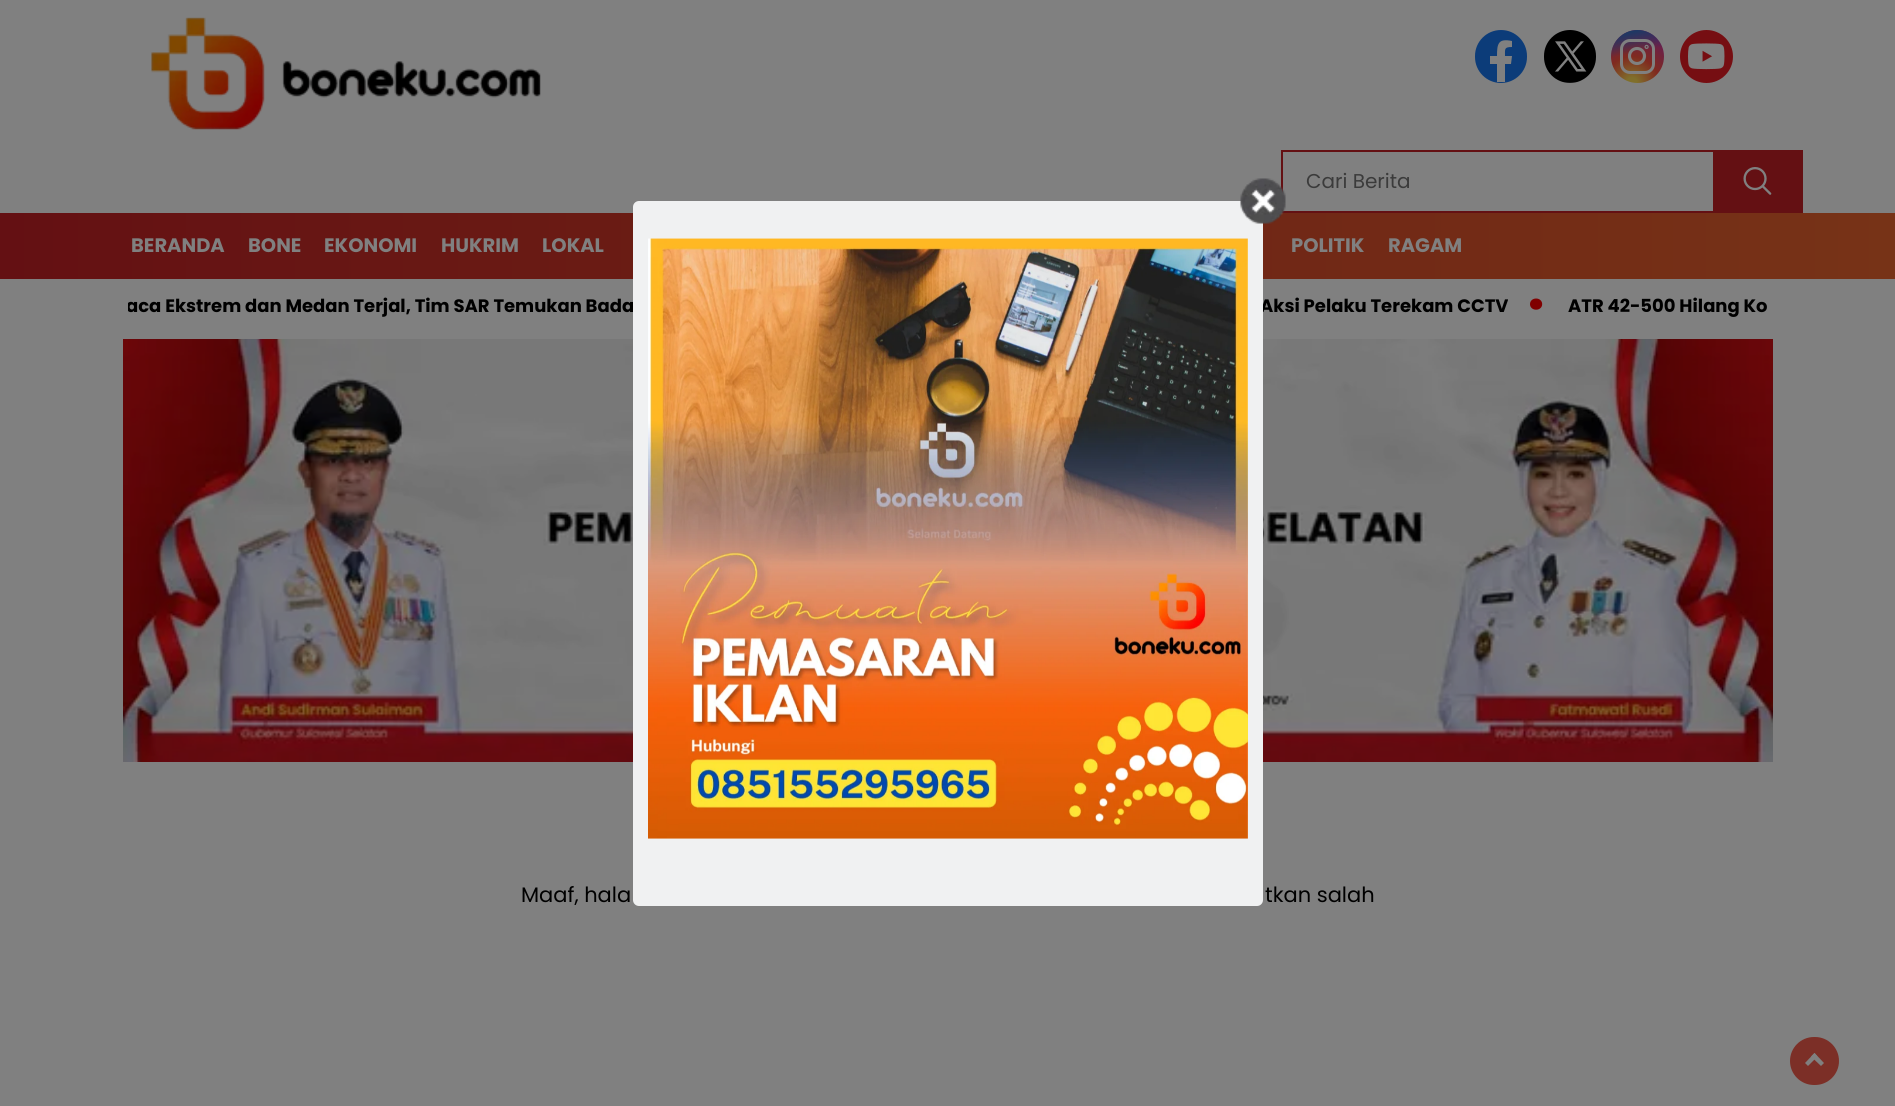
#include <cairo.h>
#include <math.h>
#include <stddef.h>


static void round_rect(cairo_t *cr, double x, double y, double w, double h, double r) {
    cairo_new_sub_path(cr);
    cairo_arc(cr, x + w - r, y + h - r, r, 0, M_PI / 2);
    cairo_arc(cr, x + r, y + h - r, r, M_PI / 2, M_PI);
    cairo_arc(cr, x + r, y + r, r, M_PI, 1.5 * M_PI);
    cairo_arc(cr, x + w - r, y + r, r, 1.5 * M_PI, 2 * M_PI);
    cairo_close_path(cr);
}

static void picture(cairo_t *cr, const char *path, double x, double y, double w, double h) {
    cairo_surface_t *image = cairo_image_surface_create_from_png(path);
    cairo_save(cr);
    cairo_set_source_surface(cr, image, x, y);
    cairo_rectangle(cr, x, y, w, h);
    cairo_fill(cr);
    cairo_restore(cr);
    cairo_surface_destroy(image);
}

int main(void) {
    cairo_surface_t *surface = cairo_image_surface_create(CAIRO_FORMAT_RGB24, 1895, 1106);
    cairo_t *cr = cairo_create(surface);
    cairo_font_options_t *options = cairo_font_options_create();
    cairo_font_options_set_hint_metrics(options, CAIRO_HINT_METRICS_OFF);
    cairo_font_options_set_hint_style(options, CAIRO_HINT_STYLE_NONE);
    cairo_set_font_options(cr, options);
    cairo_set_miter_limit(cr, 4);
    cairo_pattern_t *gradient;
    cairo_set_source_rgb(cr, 0.502, 0.502, 0.502);
    cairo_paint(cr);
    picture(cr, "img1.png", 151, 17, 390, 113);
    cairo_set_source_rgb(cr, 0.047, 0.235, 0.475);
    round_rect(cr, 1475, 30, 52, 53, 26);
    cairo_fill(cr);
    cairo_set_source_rgb(cr, 0.502, 0.502, 0.502);
    cairo_new_path(cr);
    cairo_move_to(cr, 1511, 64);
    cairo_line_to(cr, 1512, 56);
    cairo_line_to(cr, 1505, 56);
    cairo_curve_to(cr, 1505, 49, 1504, 47, 1512, 47);
    cairo_line_to(cr, 1512, 41);
    cairo_curve_to(cr, 1498, 38, 1497, 44, 1497, 56);
    cairo_line_to(cr, 1490, 56);
    cairo_line_to(cr, 1490, 64);
    cairo_line_to(cr, 1497, 64);
    cairo_line_to(cr, 1497, 82);
    cairo_line_to(cr, 1505, 82);
    cairo_line_to(cr, 1505, 64);
    cairo_close_path(cr);
    cairo_fill(cr);
    picture(cr, "img2.png", 1544, 30, 52, 53);
    gradient = cairo_pattern_create_radial(1632, 83, 0, 1632, 83, 53);
    cairo_pattern_add_color_stop_rgba(gradient, 0.1, 0.502, 0.435, 0.169, 1);
    cairo_pattern_add_color_stop_rgba(gradient, 0.5, 0.502, 0.165, 0.122, 1);
    cairo_pattern_add_color_stop_rgba(gradient, 1, 0.392, 0.11, 0.337, 1);
    cairo_set_source(cr, gradient);
    cairo_pattern_destroy(gradient);
    cairo_arc(cr, 1637.5, 56.5, 26.5, 0, 2 * M_PI);
    cairo_fill(cr);
    gradient = cairo_pattern_create_linear(1611, 30, 1622, 83);
    cairo_pattern_add_color_stop_rgba(gradient, 0.1, 0.11, 0.224, 0.392, 1);
    cairo_pattern_add_color_stop_rgba(gradient, 0.5, 0.11, 0.224, 0.392, 0);
    cairo_set_source(cr, gradient);
    cairo_pattern_destroy(gradient);
    cairo_arc(cr, 1637.5, 56.5, 26.5, 0, 2 * M_PI);
    cairo_fill(cr);
    round_rect(cr, 1621.5, 40.5, 32, 32, 8.5);
    cairo_set_source_rgb(cr, 0.502, 0.502, 0.502);
    cairo_set_line_width(cr, 3);
    cairo_stroke(cr);
    cairo_arc(cr, 1637, 56, 7.5, 0, 2 * M_PI);
    cairo_set_line_width(cr, 3.1);
    cairo_stroke(cr);
    cairo_arc(cr, 1646.6, 46.9, 0.6, 0, 2 * M_PI);
    cairo_stroke(cr);
    picture(cr, "img3.png", 1680, 30, 53, 53);
    cairo_rectangle(cr, 1282, 151, 432, 61);
    cairo_set_source_rgb(cr, 0.392, 0.063, 0.075);
    cairo_set_line_width(cr, 2);
    cairo_stroke(cr);
    cairo_select_font_face(cr, "Poppins", CAIRO_FONT_SLANT_NORMAL, CAIRO_FONT_WEIGHT_NORMAL);
    cairo_set_font_size(cr, 20);
    cairo_set_source_rgb(cr, 0.231, 0.231, 0.231);
    cairo_move_to(cr, 1306, 188);
    cairo_show_text(cr, "Cari Berita");
    cairo_set_source_rgb(cr, 0.392, 0.063, 0.075);
    cairo_rectangle(cr, 1715, 150, 88, 63);
    cairo_fill(cr);
    picture(cr, "img4.png", 1743, 167, 29, 28);
    gradient = cairo_pattern_create_linear(0, 246, 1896, 246);
    cairo_pattern_add_color_stop_rgba(gradient, 0, 0.392, 0.063, 0.075, 1);
    cairo_pattern_add_color_stop_rgba(gradient, 1, 0.467, 0.2, 0.09, 1);
    cairo_set_source(cr, gradient);
    cairo_pattern_destroy(gradient);
    cairo_rectangle(cr, 0, 213, 1895, 66);
    cairo_fill(cr);
    cairo_select_font_face(cr, "Poppins", CAIRO_FONT_SLANT_NORMAL, CAIRO_FONT_WEIGHT_BOLD);
    cairo_set_font_size(cr, 19.5);
    cairo_set_source_rgb(cr, 0.502, 0.502, 0.502);
    cairo_move_to(cr, 131, 252);
    cairo_show_text(cr, "BERANDA");
    cairo_move_to(cr, 248, 252);
    cairo_show_text(cr, "BONE");
    cairo_move_to(cr, 324, 252);
    cairo_show_text(cr, "EKONOMI");
    cairo_move_to(cr, 441, 252);
    cairo_show_text(cr, "HUKRIM");
    cairo_move_to(cr, 542, 252);
    cairo_show_text(cr, "LOKAL");
    cairo_move_to(cr, 1291, 252);
    cairo_show_text(cr, "POLITIK");
    cairo_move_to(cr, 1388, 252);
    cairo_show_text(cr, "RAGAM");
    cairo_save(cr);
    cairo_rectangle(cr, 128, 279, 1642, 53);
    cairo_clip(cr);
    cairo_set_font_size(cr, 18);
    cairo_set_source_rgb(cr, 0, 0, 0);
    cairo_move_to(cr, 126, 312);
    cairo_show_text(cr, "aca Ekstrem dan Medan Terjal, Tim SAR Temukan Bada");
    cairo_restore(cr);
    cairo_set_font_size(cr, 18);
    cairo_set_source_rgb(cr, 0, 0, 0);
    cairo_move_to(cr, 1260, 312);
    cairo_show_text(cr, "Aksi Pelaku Terekam CCTV");
    cairo_set_font_size(cr, 60);
    cairo_set_source_rgb(cr, 0.502, 0, 0);
    cairo_move_to(cr, 1527, 323);
    cairo_show_text(cr, "·");
    cairo_set_font_size(cr, 18);
    cairo_set_source_rgb(cr, 0, 0, 0);
    cairo_move_to(cr, 1568, 312);
    cairo_show_text(cr, "ATR 42-500 Hilang Ko");
    picture(cr, "img7.png", 123, 339, 1650, 423);
    cairo_set_source_rgb(cr, 0.941, 0.945, 0.949);
    round_rect(cr, 633, 201, 630, 705, 6);
    cairo_fill(cr);
    picture(cr, "img5.png", 1240, 178, 46, 46);
    picture(cr, "img6.png", 648, 238, 600, 601);
    cairo_select_font_face(cr, "Poppins", CAIRO_FONT_SLANT_NORMAL, CAIRO_FONT_WEIGHT_NORMAL);
    cairo_set_font_size(cr, 21);
    cairo_set_source_rgb(cr, 0, 0, 0);
    cairo_move_to(cr, 521, 902);
    cairo_show_text(cr, "Maaf, hala");
    cairo_move_to(cr, 1265, 902);
    cairo_show_text(cr, "tkan salah");
    cairo_set_source_rgb(cr, 0.486, 0.184, 0.153);
    round_rect(cr, 1790, 1037, 49, 48, 24);
    cairo_fill(cr);
    cairo_set_source_rgb(cr, 0.502, 0.502, 0.502);
    cairo_new_path(cr);
    cairo_move_to(cr, 1808, 1066);
    cairo_line_to(cr, 1805, 1063);
    cairo_line_to(cr, 1814.5, 1053);
    cairo_line_to(cr, 1817.5, 1056.5);
    cairo_close_path(cr);
    cairo_fill(cr);
    cairo_new_path(cr);
    cairo_move_to(cr, 1821, 1066);
    cairo_line_to(cr, 1811, 1056.5);
    cairo_line_to(cr, 1814.5, 1053);
    cairo_line_to(cr, 1824, 1063);
    cairo_close_path(cr);
    cairo_fill(cr);
    cairo_surface_write_to_png(surface, "page.png");
    cairo_font_options_destroy(options);
    cairo_destroy(cr);
    cairo_surface_destroy(surface);
    return 0;
}
